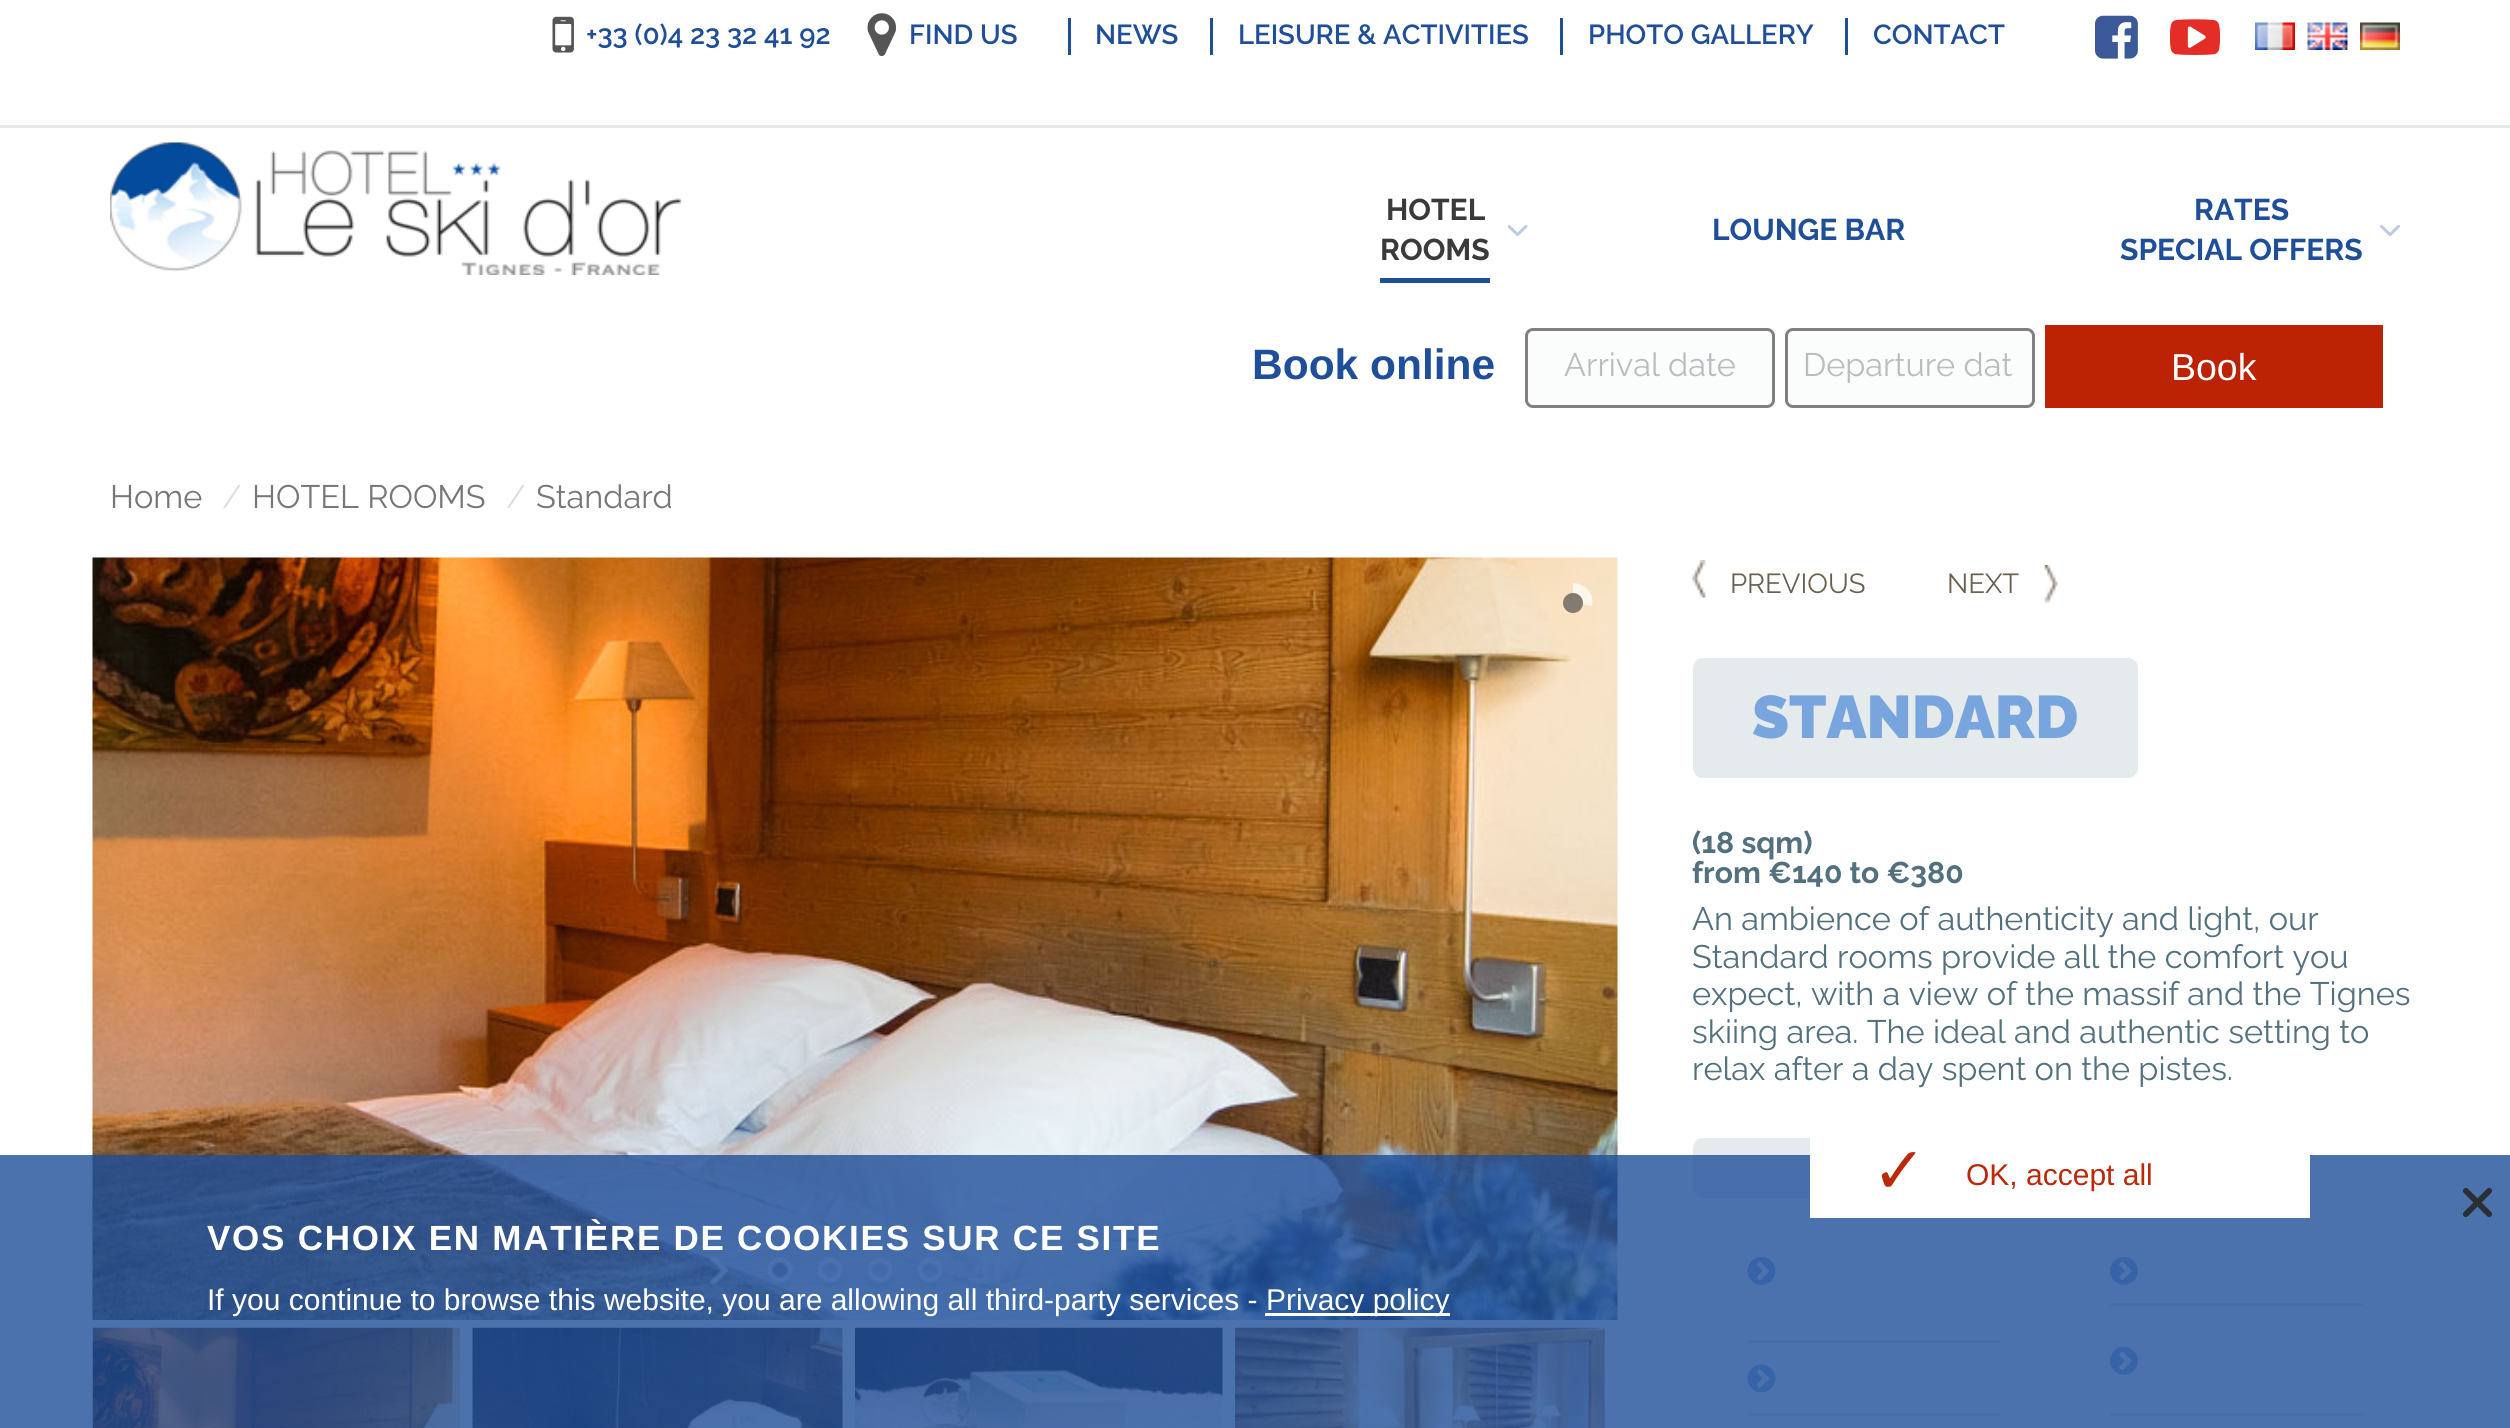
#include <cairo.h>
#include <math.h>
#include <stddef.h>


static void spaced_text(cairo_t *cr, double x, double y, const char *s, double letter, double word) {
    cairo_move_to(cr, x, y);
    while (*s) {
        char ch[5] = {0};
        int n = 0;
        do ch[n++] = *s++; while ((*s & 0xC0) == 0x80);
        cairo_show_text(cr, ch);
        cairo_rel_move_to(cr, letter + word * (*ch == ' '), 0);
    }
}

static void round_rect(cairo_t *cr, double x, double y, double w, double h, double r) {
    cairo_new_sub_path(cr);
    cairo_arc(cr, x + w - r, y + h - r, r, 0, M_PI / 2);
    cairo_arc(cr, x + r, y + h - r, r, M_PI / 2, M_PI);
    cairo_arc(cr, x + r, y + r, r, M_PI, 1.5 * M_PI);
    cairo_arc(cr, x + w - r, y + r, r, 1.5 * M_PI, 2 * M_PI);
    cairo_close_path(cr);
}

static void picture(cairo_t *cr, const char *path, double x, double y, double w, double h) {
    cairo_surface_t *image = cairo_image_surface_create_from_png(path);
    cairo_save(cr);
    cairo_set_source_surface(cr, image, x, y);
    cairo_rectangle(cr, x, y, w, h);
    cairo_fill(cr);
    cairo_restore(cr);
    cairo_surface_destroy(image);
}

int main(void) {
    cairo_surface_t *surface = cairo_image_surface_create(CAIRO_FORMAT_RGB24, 2510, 1428);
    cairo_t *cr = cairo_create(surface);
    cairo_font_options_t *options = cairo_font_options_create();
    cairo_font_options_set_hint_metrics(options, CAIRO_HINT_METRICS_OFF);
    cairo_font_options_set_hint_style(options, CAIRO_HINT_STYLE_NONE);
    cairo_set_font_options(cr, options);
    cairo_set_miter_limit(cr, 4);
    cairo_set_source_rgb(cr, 1, 1, 1);
    cairo_paint(cr);
    cairo_set_source_rgb(cr, 0.898, 0.91, 0.918);
    cairo_rectangle(cr, 0, 125, 2510, 3);
    cairo_fill(cr);
    picture(cr, "img1.png", 552, 16, 22, 37);
    cairo_select_font_face(cr, "Raleway SemiBold", CAIRO_FONT_SLANT_NORMAL, CAIRO_FONT_WEIGHT_NORMAL);
    cairo_set_font_size(cr, 27.5);
    cairo_set_source_rgb(cr, 0.122, 0.31, 0.608);
    cairo_move_to(cr, 586, 44);
    cairo_show_text(cr, "+33 (0)4 23 32 41 92");
    picture(cr, "img2.png", 867, 13, 30, 44);
    cairo_move_to(cr, 909, 44);
    cairo_show_text(cr, "FIND US");
    cairo_set_source_rgb(cr, 0.125, 0.31, 0.604);
    cairo_rectangle(cr, 1068, 18, 3, 37);
    cairo_fill(cr);
    cairo_set_source_rgb(cr, 0.122, 0.31, 0.608);
    cairo_move_to(cr, 1095, 44);
    cairo_show_text(cr, "NEWS");
    cairo_set_source_rgb(cr, 0.125, 0.31, 0.604);
    cairo_rectangle(cr, 1210, 18, 3, 37);
    cairo_fill(cr);
    cairo_set_source_rgb(cr, 0.122, 0.31, 0.608);
    cairo_move_to(cr, 1238, 44);
    cairo_show_text(cr, "LEISURE & ACTIVITIES");
    cairo_set_source_rgb(cr, 0.125, 0.31, 0.604);
    cairo_rectangle(cr, 1560, 18, 3, 37);
    cairo_fill(cr);
    cairo_set_source_rgb(cr, 0.122, 0.31, 0.608);
    cairo_move_to(cr, 1588, 44);
    cairo_show_text(cr, "PHOTO GALLERY");
    cairo_set_source_rgb(cr, 0.125, 0.31, 0.604);
    cairo_rectangle(cr, 1845, 18, 3, 37);
    cairo_fill(cr);
    cairo_set_source_rgb(cr, 0.122, 0.31, 0.608);
    cairo_move_to(cr, 1873, 44);
    cairo_show_text(cr, "CONTACT");
    picture(cr, "img3.png", 2095, 15, 43, 44);
    picture(cr, "img4.png", 2170, 19, 50, 36);
    picture(cr, "img5.png", 2255, 22, 40, 28);
    picture(cr, "img6.png", 2307, 22, 41, 28);
    picture(cr, "img7.png", 2360, 22, 40, 28);
    picture(cr, "img8.png", 110, 142, 572, 133);
    cairo_select_font_face(cr, "Raleway", CAIRO_FONT_SLANT_NORMAL, CAIRO_FONT_WEIGHT_BOLD);
    cairo_set_font_size(cr, 30);
    cairo_set_source_rgb(cr, 0.227, 0.227, 0.227);
    cairo_move_to(cr, 1386, 220);
    cairo_show_text(cr, "HOTEL");
    picture(cr, "img9.png", 1508, 225, 20, 12);
    cairo_move_to(cr, 1380, 260);
    cairo_show_text(cr, "ROOMS");
    cairo_set_source_rgb(cr, 0.125, 0.31, 0.604);
    cairo_rectangle(cr, 1380, 278, 110, 5);
    cairo_fill(cr);
    cairo_set_source_rgb(cr, 0.122, 0.31, 0.608);
    cairo_move_to(cr, 1712, 240);
    cairo_show_text(cr, "LOUNGE BAR");
    cairo_move_to(cr, 2194, 220);
    cairo_show_text(cr, "RATES");
    picture(cr, "img10.png", 2380, 225, 20, 11);
    cairo_move_to(cr, 2120, 260);
    cairo_show_text(cr, "SPECIAL OFFERS");
    cairo_select_font_face(cr, "Liberation Sans", CAIRO_FONT_SLANT_NORMAL, CAIRO_FONT_WEIGHT_BOLD);
    cairo_set_font_size(cr, 42.5);
    cairo_move_to(cr, 1252, 379);
    cairo_show_text(cr, "Book online");
    cairo_set_source_rgb(cr, 0.984, 0.988, 0.988);
    round_rect(cr, 1526.5, 329.5, 247, 77, 6.5);
    cairo_fill_preserve(cr);
    cairo_set_source_rgb(cr, 0.502, 0.502, 0.502);
    cairo_set_line_width(cr, 3);
    cairo_stroke(cr);
    cairo_select_font_face(cr, "Raleway", CAIRO_FONT_SLANT_NORMAL, CAIRO_FONT_WEIGHT_NORMAL);
    cairo_set_font_size(cr, 32.5);
    cairo_set_source_rgb(cr, 0.722, 0.737, 0.745);
    cairo_move_to(cr, 1564, 376);
    cairo_show_text(cr, "Arrival date");
    cairo_set_source_rgb(cr, 0.984, 0.988, 0.988);
    round_rect(cr, 1786.5, 329.5, 247, 77, 6.5);
    cairo_fill_preserve(cr);
    cairo_set_source_rgb(cr, 0.502, 0.502, 0.502);
    cairo_stroke(cr);
    cairo_set_source_rgb(cr, 0.722, 0.737, 0.745);
    cairo_move_to(cr, 1803, 376);
    cairo_show_text(cr, "Departure dat");
    cairo_set_source_rgb(cr, 0.733, 0.137, 0.016);
    cairo_rectangle(cr, 2045, 325, 338, 83);
    cairo_fill(cr);
    cairo_select_font_face(cr, "Liberation Sans", CAIRO_FONT_SLANT_NORMAL, CAIRO_FONT_WEIGHT_NORMAL);
    cairo_set_font_size(cr, 37.5);
    cairo_set_source_rgb(cr, 1, 1, 1);
    cairo_move_to(cr, 2171, 380);
    cairo_show_text(cr, "Book");
    cairo_select_font_face(cr, "Raleway", CAIRO_FONT_SLANT_NORMAL, CAIRO_FONT_WEIGHT_NORMAL);
    cairo_set_font_size(cr, 32.5);
    cairo_set_source_rgb(cr, 0.467, 0.467, 0.467);
    cairo_move_to(cr, 110, 508);
    cairo_show_text(cr, "Home");
    cairo_set_source_rgb(cr, 0.867, 0.867, 0.867);
    cairo_move_to(cr, 222, 508);
    cairo_show_text(cr, "/");
    cairo_set_source_rgb(cr, 0.467, 0.467, 0.467);
    cairo_move_to(cr, 252, 508);
    cairo_show_text(cr, "HOTEL ROOMS");
    cairo_set_source_rgb(cr, 0.867, 0.867, 0.867);
    cairo_move_to(cr, 506, 508);
    cairo_show_text(cr, "/");
    cairo_set_source_rgb(cr, 0.467, 0.467, 0.467);
    cairo_move_to(cr, 536, 508);
    cairo_show_text(cr, "Standard");
    picture(cr, "img11.png", 92, 557, 1526, 763);
    cairo_save(cr);
    cairo_rectangle(cr, 1573, 583, 20, 40);
    cairo_clip(cr);
    cairo_set_source_rgb(cr, 0.992, 0.961, 0.918);
    cairo_new_path(cr);
    cairo_move_to(cr, 1592, 606);
    cairo_line_to(cr, 1553, 599);
    cairo_curve_to(cr, 1558, 573, 1597, 581, 1592, 606);
    cairo_close_path(cr);
    cairo_fill(cr);
    cairo_restore(cr);
    cairo_set_source_rgb(cr, 0.514, 0.482, 0.439);
    cairo_arc(cr, 1573, 603, 10, 0, 2 * M_PI);
    cairo_fill(cr);
    picture(cr, "img12.png", 709, 1254, 20, 36);
    picture(cr, "img13.png", 765, 1257, 30, 32);
    picture(cr, "img14.png", 815, 1257, 30, 32);
    picture(cr, "img15.png", 865, 1257, 30, 32);
    picture(cr, "img16.png", 915, 1257, 30, 32);
    picture(cr, "img17.png", 981, 1256, 22, 32);
    picture(cr, "img18.png", 92, 1327, 368, 101);
    picture(cr, "img19.png", 472, 1327, 371, 101);
    picture(cr, "img20.png", 855, 1327, 368, 101);
    picture(cr, "img21.png", 1235, 1327, 370, 101);
    picture(cr, "img22.png", 1692, 560, 14, 38);
    cairo_set_font_size(cr, 27.5);
    cairo_set_source_rgb(cr, 0.42, 0.373, 0.322);
    cairo_move_to(cr, 1730, 593);
    cairo_show_text(cr, "PREVIOUS");
    picture(cr, "img23.png", 2044, 565, 14, 38);
    cairo_move_to(cr, 1947, 593);
    cairo_show_text(cr, "NEXT");
    cairo_set_source_rgb(cr, 0.898, 0.918, 0.925);
    round_rect(cr, 1693, 658, 445, 120, 10);
    cairo_fill(cr);
    cairo_select_font_face(cr, "Raleway Black", CAIRO_FONT_SLANT_NORMAL, CAIRO_FONT_WEIGHT_NORMAL);
    cairo_set_font_size(cr, 60);
    cairo_set_source_rgb(cr, 0.475, 0.647, 0.875);
    cairo_move_to(cr, 1752, 738);
    cairo_show_text(cr, "STANDARD");
    cairo_select_font_face(cr, "Raleway", CAIRO_FONT_SLANT_NORMAL, CAIRO_FONT_WEIGHT_BOLD);
    cairo_set_font_size(cr, 30);
    cairo_set_source_rgb(cr, 0.322, 0.439, 0.494);
    cairo_move_to(cr, 1692, 853);
    cairo_show_text(cr, "(18 sqm)");
    cairo_move_to(cr, 1692, 883);
    cairo_show_text(cr, "from €140 to €380");
    cairo_select_font_face(cr, "Raleway", CAIRO_FONT_SLANT_NORMAL, CAIRO_FONT_WEIGHT_NORMAL);
    cairo_set_font_size(cr, 32.5);
    cairo_move_to(cr, 1692, 930);
    cairo_show_text(cr, "An ambience of authenticity and light, our");
    cairo_move_to(cr, 1692, 968);
    cairo_show_text(cr, "Standard rooms provide all the comfort you");
    cairo_move_to(cr, 1692, 1005);
    cairo_show_text(cr, "expect, with a view of the massif and the Tignes");
    cairo_move_to(cr, 1692, 1043);
    cairo_show_text(cr, "skiing area. The ideal and authentic setting to");
    cairo_move_to(cr, 1692, 1080);
    cairo_show_text(cr, "relax after a day spent on the pistes.");
    cairo_set_source_rgb(cr, 0.898, 0.918, 0.925);
    round_rect(cr, 1693, 1138, 202, 60, 10);
    cairo_fill(cr);
    picture(cr, "img24.png", 1747, 1257, 29, 28);
    cairo_rectangle(cr, 1748, 1340, 252, 3);
    cairo_fill(cr);
    picture(cr, "img25.png", 1747, 1364, 29, 29);
    cairo_rectangle(cr, 1748, 1413, 252, 3);
    cairo_fill(cr);
    picture(cr, "img26.png", 2110, 1257, 28, 28);
    cairo_rectangle(cr, 2110, 1303, 253, 3);
    cairo_fill(cr);
    picture(cr, "img26.png", 2110, 1347, 28, 28);
    cairo_rectangle(cr, 2110, 1413, 253, 3);
    cairo_fill(cr);
    cairo_set_source_rgba(cr, 0.125, 0.31, 0.604, 0.8);
    cairo_rectangle(cr, 0, 1155, 2510, 273);
    cairo_fill(cr);
    cairo_set_source_rgb(cr, 1, 1, 1);
    cairo_rectangle(cr, 1810, 1138, 500, 80);
    cairo_fill(cr);
    cairo_select_font_face(cr, "DejaVu Sans", CAIRO_FONT_SLANT_NORMAL, CAIRO_FONT_WEIGHT_NORMAL);
    cairo_set_font_size(cr, 65);
    cairo_set_source_rgb(cr, 0.741, 0.157, 0.039);
    cairo_move_to(cr, 1872, 1193);
    cairo_show_text(cr, "✓");
    cairo_select_font_face(cr, "Liberation Sans", CAIRO_FONT_SLANT_NORMAL, CAIRO_FONT_WEIGHT_NORMAL);
    cairo_set_font_size(cr, 30);
    cairo_move_to(cr, 1966, 1185);
    cairo_show_text(cr, "OK, accept all");
    cairo_select_font_face(cr, "Liberation Sans", CAIRO_FONT_SLANT_NORMAL, CAIRO_FONT_WEIGHT_BOLD);
    cairo_set_font_size(cr, 35);
    cairo_set_source_rgb(cr, 1, 1, 1);
    spaced_text(cr, 207, 1250, "VOS CHOIX EN MATIÈRE DE COOKIES SUR CE SITE", 1.75, 0);
    cairo_select_font_face(cr, "Liberation Sans", CAIRO_FONT_SLANT_NORMAL, CAIRO_FONT_WEIGHT_NORMAL);
    cairo_set_font_size(cr, 30);
    cairo_move_to(cr, 207, 1310);
    cairo_show_text(cr, "If you continue to browse this website, you are allowing all third-party services -");
    cairo_rectangle(cr, 1265, 1313, 185, 3);
    cairo_fill(cr);
    cairo_move_to(cr, 1266, 1310);
    cairo_show_text(cr, "Privacy policy");
    picture(cr, "img27.png", 2462, 1188, 30, 30);
    cairo_surface_write_to_png(surface, "page.png");
    cairo_font_options_destroy(options);
    cairo_destroy(cr);
    cairo_surface_destroy(surface);
    return 0;
}
